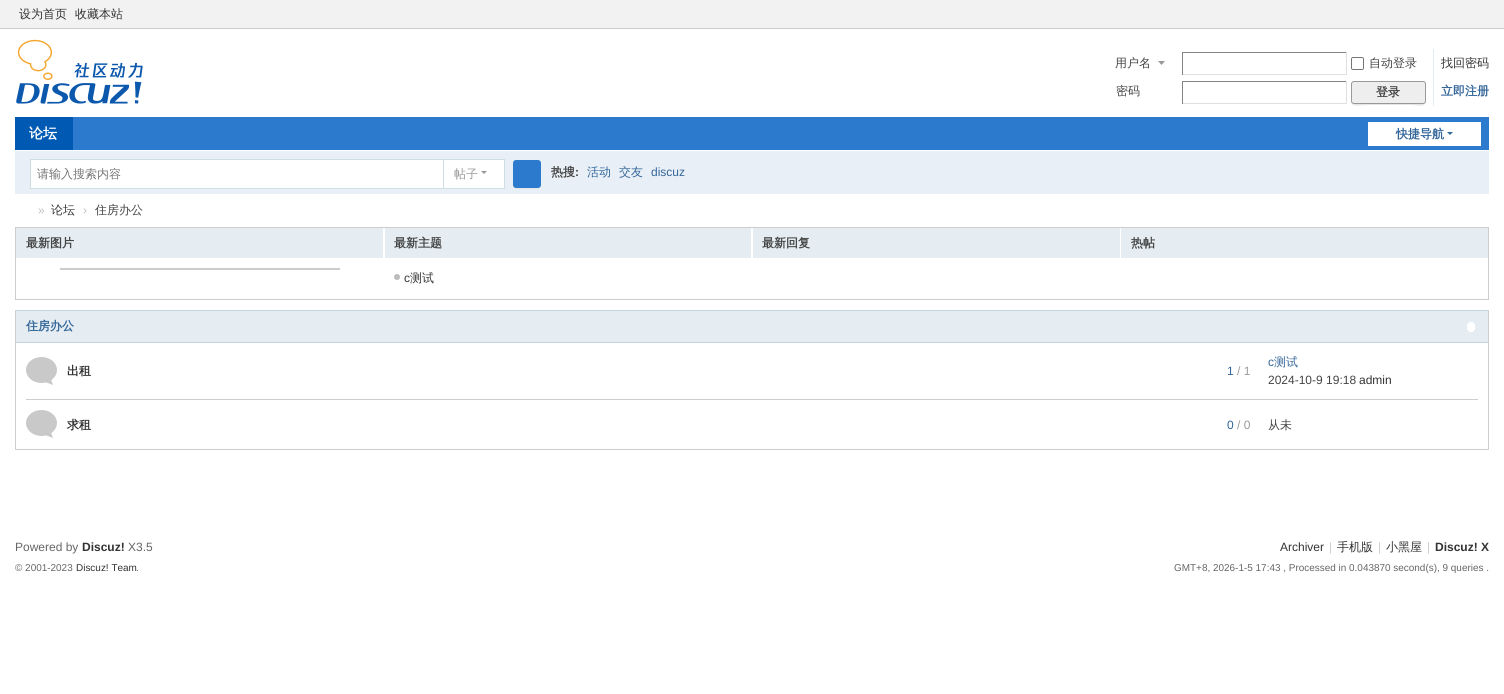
#include <cairo.h>
#include <math.h>
#include <stddef.h>


static void round_rect(cairo_t *cr, double x, double y, double w, double h, double r) {
    cairo_new_sub_path(cr);
    cairo_arc(cr, x + w - r, y + h - r, r, 0, M_PI / 2);
    cairo_arc(cr, x + r, y + h - r, r, M_PI / 2, M_PI);
    cairo_arc(cr, x + r, y + r, r, M_PI, 1.5 * M_PI);
    cairo_arc(cr, x + w - r, y + r, r, 1.5 * M_PI, 2 * M_PI);
    cairo_close_path(cr);
}

static void picture(cairo_t *cr, const char *path, double x, double y, double w, double h) {
    cairo_surface_t *image = cairo_image_surface_create_from_png(path);
    cairo_save(cr);
    cairo_set_source_surface(cr, image, x, y);
    cairo_rectangle(cr, x, y, w, h);
    cairo_fill(cr);
    cairo_restore(cr);
    cairo_surface_destroy(image);
}

int main(void) {
    cairo_surface_t *surface = cairo_image_surface_create(CAIRO_FORMAT_RGB24, 1504, 694);
    cairo_t *cr = cairo_create(surface);
    cairo_font_options_t *options = cairo_font_options_create();
    cairo_font_options_set_hint_metrics(options, CAIRO_HINT_METRICS_OFF);
    cairo_font_options_set_hint_style(options, CAIRO_HINT_STYLE_NONE);
    cairo_set_font_options(cr, options);
    cairo_set_miter_limit(cr, 4);
    cairo_pattern_t *gradient;
    cairo_set_source_rgb(cr, 1, 1, 1);
    cairo_paint(cr);
    cairo_set_source_rgb(cr, 0.949, 0.949, 0.949);
    cairo_rectangle(cr, 0, 0, 1504, 28);
    cairo_fill(cr);
    cairo_set_source_rgb(cr, 0.804, 0.804, 0.804);
    cairo_rectangle(cr, 0, 28, 1504, 1);
    cairo_fill(cr);
    cairo_select_font_face(cr, "WenQuanYi Zen Hei Medium", CAIRO_FONT_SLANT_NORMAL, CAIRO_FONT_WEIGHT_NORMAL);
    cairo_set_font_size(cr, 12);
    cairo_set_source_rgb(cr, 0.2, 0.2, 0.2);
    cairo_move_to(cr, 19, 18);
    cairo_show_text(cr, "设为首页");
    cairo_move_to(cr, 75, 18);
    cairo_show_text(cr, "收藏本站");
    picture(cr, "img1.png", 16, 39, 127, 65);
    cairo_set_source_rgb(cr, 0.6, 0.6, 0.6);
    cairo_new_path(cr);
    cairo_move_to(cr, 1165, 61);
    cairo_line_to(cr, 1158, 61);
    cairo_line_to(cr, 1161.5, 65);
    cairo_close_path(cr);
    cairo_fill(cr);
    cairo_set_source_rgb(cr, 0.267, 0.267, 0.267);
    cairo_move_to(cr, 1115, 67);
    cairo_show_text(cr, "用户名");
    cairo_set_source_rgb(cr, 0.518, 0.518, 0.518);
    cairo_rectangle(cr, 1182, 52, 165, 1);
    cairo_fill(cr);
    cairo_set_source_rgb(cr, 0.878, 0.878, 0.878);
    cairo_rectangle(cr, 1346, 52, 1, 23);
    cairo_fill(cr);
    cairo_rectangle(cr, 1182, 74, 165, 1);
    cairo_fill(cr);
    cairo_set_source_rgb(cr, 0.518, 0.518, 0.518);
    cairo_rectangle(cr, 1182, 52, 1, 23);
    cairo_fill(cr);
    round_rect(cr, 1351.5, 57.5, 12, 12, 1.5);
    cairo_set_source_rgb(cr, 0.463, 0.463, 0.463);
    cairo_set_line_width(cr, 1);
    cairo_stroke(cr);
    cairo_set_source_rgb(cr, 0.267, 0.267, 0.267);
    cairo_move_to(cr, 1369, 67);
    cairo_show_text(cr, "自动登录");
    cairo_set_source_rgb(cr, 0.2, 0.2, 0.2);
    cairo_move_to(cr, 1441, 67);
    cairo_show_text(cr, "找回密码");
    cairo_set_source_rgb(cr, 0.267, 0.267, 0.267);
    cairo_move_to(cr, 1116, 95);
    cairo_show_text(cr, "密码");
    cairo_set_source_rgb(cr, 0.518, 0.518, 0.518);
    cairo_rectangle(cr, 1182, 81, 165, 1);
    cairo_fill(cr);
    cairo_set_source_rgb(cr, 0.878, 0.878, 0.878);
    cairo_rectangle(cr, 1346, 81, 1, 23);
    cairo_fill(cr);
    cairo_rectangle(cr, 1182, 103, 165, 1);
    cairo_fill(cr);
    cairo_set_source_rgb(cr, 0.518, 0.518, 0.518);
    cairo_rectangle(cr, 1182, 81, 1, 23);
    cairo_fill(cr);
    cairo_set_source_rgb(cr, 0.898, 0.929, 0.949);
    cairo_rectangle(cr, 1433, 49, 1, 57);
    cairo_fill(cr);
    cairo_set_source_rgb(cr, 0.898, 0.898, 0.898);
    cairo_new_path(cr);
    cairo_move_to(cr, 1351, 101);
    cairo_curve_to(cr, 1351, 108, 1361, 105, 1366, 105);
    cairo_line_to(cr, 1412, 105);
    cairo_curve_to(cr, 1416, 105, 1426, 108, 1426, 101);
    cairo_curve_to(cr, 1426, 103, 1425, 104, 1423, 104);
    cairo_line_to(cr, 1354, 104);
    cairo_curve_to(cr, 1352, 104, 1351, 103, 1351, 101);
    cairo_close_path(cr);
    cairo_fill(cr);
    cairo_set_source_rgb(cr, 0.933, 0.933, 0.933);
    round_rect(cr, 1351.5, 81.5, 74, 22, 2.5);
    cairo_fill_preserve(cr);
    cairo_set_source_rgb(cr, 0.6, 0.6, 0.6);
    cairo_stroke(cr);
    cairo_select_font_face(cr, "WenQuanYi Zen Hei", CAIRO_FONT_SLANT_NORMAL, CAIRO_FONT_WEIGHT_BOLD);
    cairo_set_source_rgb(cr, 0.267, 0.267, 0.267);
    cairo_move_to(cr, 1376, 96);
    cairo_show_text(cr, "登录");
    cairo_set_source_rgb(cr, 0.2, 0.4, 0.6);
    cairo_move_to(cr, 1441, 95);
    cairo_show_text(cr, "立即注册");
    cairo_set_source_rgb(cr, 0.169, 0.478, 0.804);
    cairo_rectangle(cr, 73, 117, 1416, 33);
    cairo_fill(cr);
    cairo_set_source_rgb(cr, 0, 0.353, 0.706);
    cairo_rectangle(cr, 15, 117, 58, 33);
    cairo_fill(cr);
    cairo_set_font_size(cr, 14);
    cairo_set_source_rgb(cr, 1, 1, 1);
    cairo_move_to(cr, 29, 138);
    cairo_show_text(cr, "论坛");
    cairo_rectangle(cr, 1368, 122, 113, 24);
    cairo_fill(cr);
    cairo_set_font_size(cr, 12);
    cairo_set_source_rgb(cr, 0.2, 0.4, 0.6);
    cairo_move_to(cr, 1396, 138);
    cairo_show_text(cr, "快捷导航");
    cairo_new_path(cr);
    cairo_move_to(cr, 1447, 132);
    cairo_line_to(cr, 1453, 132);
    cairo_line_to(cr, 1450, 135);
    cairo_close_path(cr);
    cairo_fill(cr);
    cairo_set_source_rgb(cr, 0.91, 0.937, 0.961);
    cairo_rectangle(cr, 15, 151, 1474, 43);
    cairo_fill(cr);
    cairo_set_source_rgb(cr, 0.812, 0.871, 0.89);
    cairo_rectangle(cr, 442, 159, 63, 1);
    cairo_fill(cr);
    cairo_rectangle(cr, 504, 159, 1, 30);
    cairo_fill(cr);
    cairo_rectangle(cr, 442, 188, 63, 1);
    cairo_fill(cr);
    cairo_set_source_rgb(cr, 1, 1, 1);
    cairo_rectangle(cr, 30.5, 159.5, 413, 29);
    cairo_fill_preserve(cr);
    cairo_set_source_rgb(cr, 0.812, 0.871, 0.89);
    cairo_stroke(cr);
    cairo_select_font_face(cr, "WenQuanYi Zen Hei Medium", CAIRO_FONT_SLANT_NORMAL, CAIRO_FONT_WEIGHT_NORMAL);
    cairo_set_source_rgb(cr, 0.459, 0.459, 0.459);
    cairo_move_to(cr, 37, 178);
    cairo_show_text(cr, "请输入搜索内容");
    cairo_set_source_rgb(cr, 1, 1, 1);
    cairo_rectangle(cr, 444, 160, 60, 28);
    cairo_fill(cr);
    cairo_set_source_rgb(cr, 0.6, 0.6, 0.6);
    cairo_move_to(cr, 454, 178);
    cairo_show_text(cr, "帖子");
    cairo_new_path(cr);
    cairo_move_to(cr, 481, 171);
    cairo_line_to(cr, 487, 171);
    cairo_line_to(cr, 484, 174);
    cairo_close_path(cr);
    cairo_fill(cr);
    cairo_set_source_rgb(cr, 0.898, 0.898, 0.898);
    cairo_new_path(cr);
    cairo_move_to(cr, 513, 185);
    cairo_curve_to(cr, 513, 189.5, 516, 189, 519.5, 189);
    cairo_line_to(cr, 534.5, 189);
    cairo_curve_to(cr, 538, 189, 541, 189.5, 541, 185);
    cairo_curve_to(cr, 541, 186.5, 539.5, 188, 538, 188);
    cairo_line_to(cr, 516, 188);
    cairo_curve_to(cr, 514.5, 188, 513, 186.5, 513, 185);
    cairo_close_path(cr);
    cairo_fill(cr);
    cairo_set_source_rgb(cr, 0.169, 0.478, 0.804);
    round_rect(cr, 513, 160, 28, 28, 3);
    cairo_fill(cr);
    cairo_select_font_face(cr, "WenQuanYi Zen Hei", CAIRO_FONT_SLANT_NORMAL, CAIRO_FONT_WEIGHT_BOLD);
    cairo_set_source_rgb(cr, 0.267, 0.267, 0.267);
    cairo_move_to(cr, 551, 176);
    cairo_show_text(cr, "热搜");
    cairo_select_font_face(cr, "Liberation Sans", CAIRO_FONT_SLANT_NORMAL, CAIRO_FONT_WEIGHT_BOLD);
    cairo_move_to(cr, 575, 176);
    cairo_show_text(cr, ":");
    cairo_select_font_face(cr, "WenQuanYi Zen Hei Medium", CAIRO_FONT_SLANT_NORMAL, CAIRO_FONT_WEIGHT_NORMAL);
    cairo_set_source_rgb(cr, 0.2, 0.4, 0.6);
    cairo_move_to(cr, 587, 176);
    cairo_show_text(cr, "活动");
    cairo_move_to(cr, 619, 176);
    cairo_show_text(cr, "交友");
    cairo_select_font_face(cr, "Liberation Sans", CAIRO_FONT_SLANT_NORMAL, CAIRO_FONT_WEIGHT_NORMAL);
    cairo_move_to(cr, 651, 176);
    cairo_show_text(cr, "discuz");
    cairo_set_source_rgb(cr, 0.741, 0.741, 0.741);
    cairo_move_to(cr, 38, 214);
    cairo_show_text(cr, "»");
    cairo_select_font_face(cr, "WenQuanYi Zen Hei Medium", CAIRO_FONT_SLANT_NORMAL, CAIRO_FONT_WEIGHT_NORMAL);
    cairo_set_source_rgb(cr, 0.2, 0.2, 0.2);
    cairo_move_to(cr, 51, 214);
    cairo_show_text(cr, "论坛");
    cairo_select_font_face(cr, "Liberation Sans", CAIRO_FONT_SLANT_NORMAL, CAIRO_FONT_WEIGHT_NORMAL);
    cairo_set_source_rgb(cr, 0.741, 0.741, 0.741);
    cairo_move_to(cr, 83, 214);
    cairo_show_text(cr, "›");
    cairo_select_font_face(cr, "WenQuanYi Zen Hei Medium", CAIRO_FONT_SLANT_NORMAL, CAIRO_FONT_WEIGHT_NORMAL);
    cairo_set_source_rgb(cr, 0.267, 0.267, 0.267);
    cairo_move_to(cr, 95, 214);
    cairo_show_text(cr, "住房办公");
    cairo_set_source_rgb(cr, 0.804, 0.804, 0.804);
    cairo_rectangle(cr, 1488, 227, 1, 73);
    cairo_fill(cr);
    cairo_rectangle(cr, 15, 299, 1474, 1);
    cairo_fill(cr);
    cairo_rectangle(cr, 15, 227, 1, 73);
    cairo_fill(cr);
    cairo_rectangle(cr, 16, 227, 1472, 1);
    cairo_fill(cr);
    cairo_set_source_rgb(cr, 0.898, 0.929, 0.949);
    cairo_rectangle(cr, 16, 228, 367, 30);
    cairo_fill(cr);
    cairo_select_font_face(cr, "WenQuanYi Zen Hei", CAIRO_FONT_SLANT_NORMAL, CAIRO_FONT_WEIGHT_BOLD);
    cairo_set_source_rgb(cr, 0.267, 0.267, 0.267);
    cairo_move_to(cr, 26, 247);
    cairo_show_text(cr, "最新图片");
    cairo_set_source_rgb(cr, 0.8, 0.8, 0.8);
    cairo_rectangle(cr, 60, 268, 280, 2);
    cairo_fill(cr);
    cairo_set_source_rgb(cr, 0.898, 0.929, 0.949);
    cairo_rectangle(cr, 385, 228, 366, 30);
    cairo_fill(cr);
    cairo_set_source_rgb(cr, 0.267, 0.267, 0.267);
    cairo_move_to(cr, 394, 247);
    cairo_show_text(cr, "最新主题");
    cairo_set_source_rgb(cr, 0.733, 0.733, 0.733);
    cairo_new_path(cr);
    cairo_arc(cr, 397, 277, 3, 0, 2 * M_PI);
    cairo_fill(cr);
    cairo_select_font_face(cr, "Liberation Sans", CAIRO_FONT_SLANT_NORMAL, CAIRO_FONT_WEIGHT_NORMAL);
    cairo_set_source_rgb(cr, 0.2, 0.2, 0.2);
    cairo_move_to(cr, 404, 282);
    cairo_show_text(cr, "c");
    cairo_select_font_face(cr, "WenQuanYi Zen Hei Medium", CAIRO_FONT_SLANT_NORMAL, CAIRO_FONT_WEIGHT_NORMAL);
    cairo_move_to(cr, 410, 282);
    cairo_show_text(cr, "测试");
    cairo_set_source_rgb(cr, 0.898, 0.929, 0.949);
    cairo_rectangle(cr, 753, 228, 367, 30);
    cairo_fill(cr);
    cairo_select_font_face(cr, "WenQuanYi Zen Hei", CAIRO_FONT_SLANT_NORMAL, CAIRO_FONT_WEIGHT_BOLD);
    cairo_set_source_rgb(cr, 0.267, 0.267, 0.267);
    cairo_move_to(cr, 762, 247);
    cairo_show_text(cr, "最新回复");
    cairo_set_source_rgb(cr, 0.898, 0.929, 0.949);
    cairo_rectangle(cr, 1121, 228, 367, 30);
    cairo_fill(cr);
    cairo_set_source_rgb(cr, 0.267, 0.267, 0.267);
    cairo_move_to(cr, 1131, 247);
    cairo_show_text(cr, "热帖");
    cairo_set_source_rgb(cr, 0.804, 0.804, 0.804);
    cairo_rectangle(cr, 1488, 310, 1, 140);
    cairo_fill(cr);
    cairo_rectangle(cr, 15, 449, 1474, 1);
    cairo_fill(cr);
    cairo_rectangle(cr, 15, 310, 1, 140);
    cairo_fill(cr);
    cairo_set_source_rgb(cr, 0.898, 0.929, 0.949);
    cairo_rectangle(cr, 16, 311, 1472, 31);
    cairo_fill(cr);
    cairo_set_source_rgb(cr, 0.761, 0.835, 0.89);
    cairo_rectangle(cr, 16, 310, 1472, 1);
    cairo_fill(cr);
    cairo_rectangle(cr, 16, 342, 1472, 1);
    cairo_fill(cr);
    cairo_set_source_rgb(cr, 0.2, 0.4, 0.6);
    cairo_move_to(cr, 26, 330);
    cairo_show_text(cr, "住房办公");
    gradient = cairo_pattern_create_radial(0, 0, 0, 0, 0, 1);
    cairo_pattern_set_matrix(gradient, &(cairo_matrix_t){1.0 / 10, 0, 0, 1.0 / 11, -1.0 * 1471 / 10, -1.0 * 327 / 11});
    cairo_pattern_add_color_stop_rgba(gradient, 0.45, 1, 1, 1, 1);
    cairo_pattern_add_color_stop_rgba(gradient, 0.45, 0.898, 0.929, 0.949, 1);
    cairo_set_source(cr, gradient);
    cairo_pattern_destroy(gradient);
    cairo_rectangle(cr, 1467, 322, 8, 10);
    cairo_fill(cr);
    picture(cr, "img2.png", 26, 357, 31, 28);
    cairo_set_source_rgb(cr, 0.2, 0.2, 0.2);
    cairo_move_to(cr, 67, 375);
    cairo_show_text(cr, "出租");
    cairo_select_font_face(cr, "Liberation Sans", CAIRO_FONT_SLANT_NORMAL, CAIRO_FONT_WEIGHT_NORMAL);
    cairo_set_source_rgb(cr, 0.2, 0.4, 0.6);
    cairo_move_to(cr, 1227, 375);
    cairo_show_text(cr, "1");
    cairo_set_source_rgb(cr, 0.6, 0.6, 0.6);
    cairo_move_to(cr, 1237, 375);
    cairo_show_text(cr, "/ 1");
    cairo_set_source_rgb(cr, 0.2, 0.4, 0.6);
    cairo_move_to(cr, 1268, 366);
    cairo_show_text(cr, "c");
    cairo_select_font_face(cr, "WenQuanYi Zen Hei Medium", CAIRO_FONT_SLANT_NORMAL, CAIRO_FONT_WEIGHT_NORMAL);
    cairo_move_to(cr, 1274, 366);
    cairo_show_text(cr, "测试");
    cairo_select_font_face(cr, "Liberation Sans", CAIRO_FONT_SLANT_NORMAL, CAIRO_FONT_WEIGHT_NORMAL);
    cairo_set_source_rgb(cr, 0.267, 0.267, 0.267);
    cairo_move_to(cr, 1268, 384);
    cairo_show_text(cr, "2024-10-9 19:18");
    cairo_set_source_rgb(cr, 0.2, 0.2, 0.2);
    cairo_move_to(cr, 1359, 384);
    cairo_show_text(cr, "admin");
    picture(cr, "img2.png", 26, 410, 31, 28);
    cairo_select_font_face(cr, "WenQuanYi Zen Hei", CAIRO_FONT_SLANT_NORMAL, CAIRO_FONT_WEIGHT_BOLD);
    cairo_move_to(cr, 67, 429);
    cairo_show_text(cr, "求租");
    cairo_select_font_face(cr, "Liberation Sans", CAIRO_FONT_SLANT_NORMAL, CAIRO_FONT_WEIGHT_NORMAL);
    cairo_set_source_rgb(cr, 0.2, 0.4, 0.6);
    cairo_move_to(cr, 1227, 429);
    cairo_show_text(cr, "0");
    cairo_set_source_rgb(cr, 0.6, 0.6, 0.6);
    cairo_move_to(cr, 1237, 429);
    cairo_show_text(cr, "/ 0");
    cairo_set_source_rgb(cr, 0.804, 0.804, 0.804);
    cairo_rectangle(cr, 26, 399, 1452, 1);
    cairo_fill(cr);
    cairo_select_font_face(cr, "WenQuanYi Zen Hei Medium", CAIRO_FONT_SLANT_NORMAL, CAIRO_FONT_WEIGHT_NORMAL);
    cairo_set_source_rgb(cr, 0.267, 0.267, 0.267);
    cairo_move_to(cr, 1268, 429);
    cairo_show_text(cr, "从未");
    cairo_select_font_face(cr, "Liberation Sans", CAIRO_FONT_SLANT_NORMAL, CAIRO_FONT_WEIGHT_NORMAL);
    cairo_set_source_rgb(cr, 0.4, 0.4, 0.4);
    cairo_move_to(cr, 15, 551);
    cairo_show_text(cr, "Powered by");
    cairo_select_font_face(cr, "Liberation Sans", CAIRO_FONT_SLANT_NORMAL, CAIRO_FONT_WEIGHT_BOLD);
    cairo_set_source_rgb(cr, 0.2, 0.2, 0.2);
    cairo_move_to(cr, 82, 551);
    cairo_show_text(cr, "Discuz!");
    cairo_select_font_face(cr, "Liberation Sans", CAIRO_FONT_SLANT_NORMAL, CAIRO_FONT_WEIGHT_NORMAL);
    cairo_set_source_rgb(cr, 0.4, 0.4, 0.4);
    cairo_move_to(cr, 128, 551);
    cairo_show_text(cr, "X3.5");
    cairo_set_font_size(cr, 9.95);
    cairo_move_to(cr, 15, 571);
    cairo_show_text(cr, "© 2001-2023");
    cairo_set_source_rgb(cr, 0.2, 0.2, 0.2);
    cairo_move_to(cr, 76, 571);
    cairo_show_text(cr, "Discuz! Team");
    cairo_set_source_rgb(cr, 0.4, 0.4, 0.4);
    cairo_move_to(cr, 136, 571);
    cairo_show_text(cr, ".");
    cairo_set_font_size(cr, 12);
    cairo_set_source_rgb(cr, 0.2, 0.2, 0.2);
    cairo_move_to(cr, 1280, 551);
    cairo_show_text(cr, "Archiver");
    cairo_set_source_rgb(cr, 0.8, 0.8, 0.8);
    cairo_move_to(cr, 1329, 551);
    cairo_show_text(cr, "|");
    cairo_select_font_face(cr, "WenQuanYi Zen Hei Medium", CAIRO_FONT_SLANT_NORMAL, CAIRO_FONT_WEIGHT_NORMAL);
    cairo_set_source_rgb(cr, 0.2, 0.2, 0.2);
    cairo_move_to(cr, 1337, 551);
    cairo_show_text(cr, "手机版");
    cairo_select_font_face(cr, "Liberation Sans", CAIRO_FONT_SLANT_NORMAL, CAIRO_FONT_WEIGHT_NORMAL);
    cairo_set_source_rgb(cr, 0.8, 0.8, 0.8);
    cairo_move_to(cr, 1378, 551);
    cairo_show_text(cr, "|");
    cairo_select_font_face(cr, "WenQuanYi Zen Hei Medium", CAIRO_FONT_SLANT_NORMAL, CAIRO_FONT_WEIGHT_NORMAL);
    cairo_set_source_rgb(cr, 0.2, 0.2, 0.2);
    cairo_move_to(cr, 1386, 551);
    cairo_show_text(cr, "小黑屋");
    cairo_select_font_face(cr, "Liberation Sans", CAIRO_FONT_SLANT_NORMAL, CAIRO_FONT_WEIGHT_NORMAL);
    cairo_set_source_rgb(cr, 0.8, 0.8, 0.8);
    cairo_move_to(cr, 1427, 551);
    cairo_show_text(cr, "|");
    cairo_select_font_face(cr, "Liberation Sans", CAIRO_FONT_SLANT_NORMAL, CAIRO_FONT_WEIGHT_BOLD);
    cairo_set_source_rgb(cr, 0.2, 0.2, 0.2);
    cairo_move_to(cr, 1435, 551);
    cairo_show_text(cr, "Discuz! X");
    cairo_select_font_face(cr, "Liberation Sans", CAIRO_FONT_SLANT_NORMAL, CAIRO_FONT_WEIGHT_NORMAL);
    cairo_set_font_size(cr, 9.95);
    cairo_set_source_rgb(cr, 0.4, 0.4, 0.4);
    cairo_move_to(cr, 1174, 571);
    cairo_show_text(cr, "GMT+8, 2026-1-5 17:43 , Processed in 0.043870 second(s), 9 queries .");
    cairo_surface_write_to_png(surface, "page.png");
    cairo_font_options_destroy(options);
    cairo_destroy(cr);
    cairo_surface_destroy(surface);
    return 0;
}
